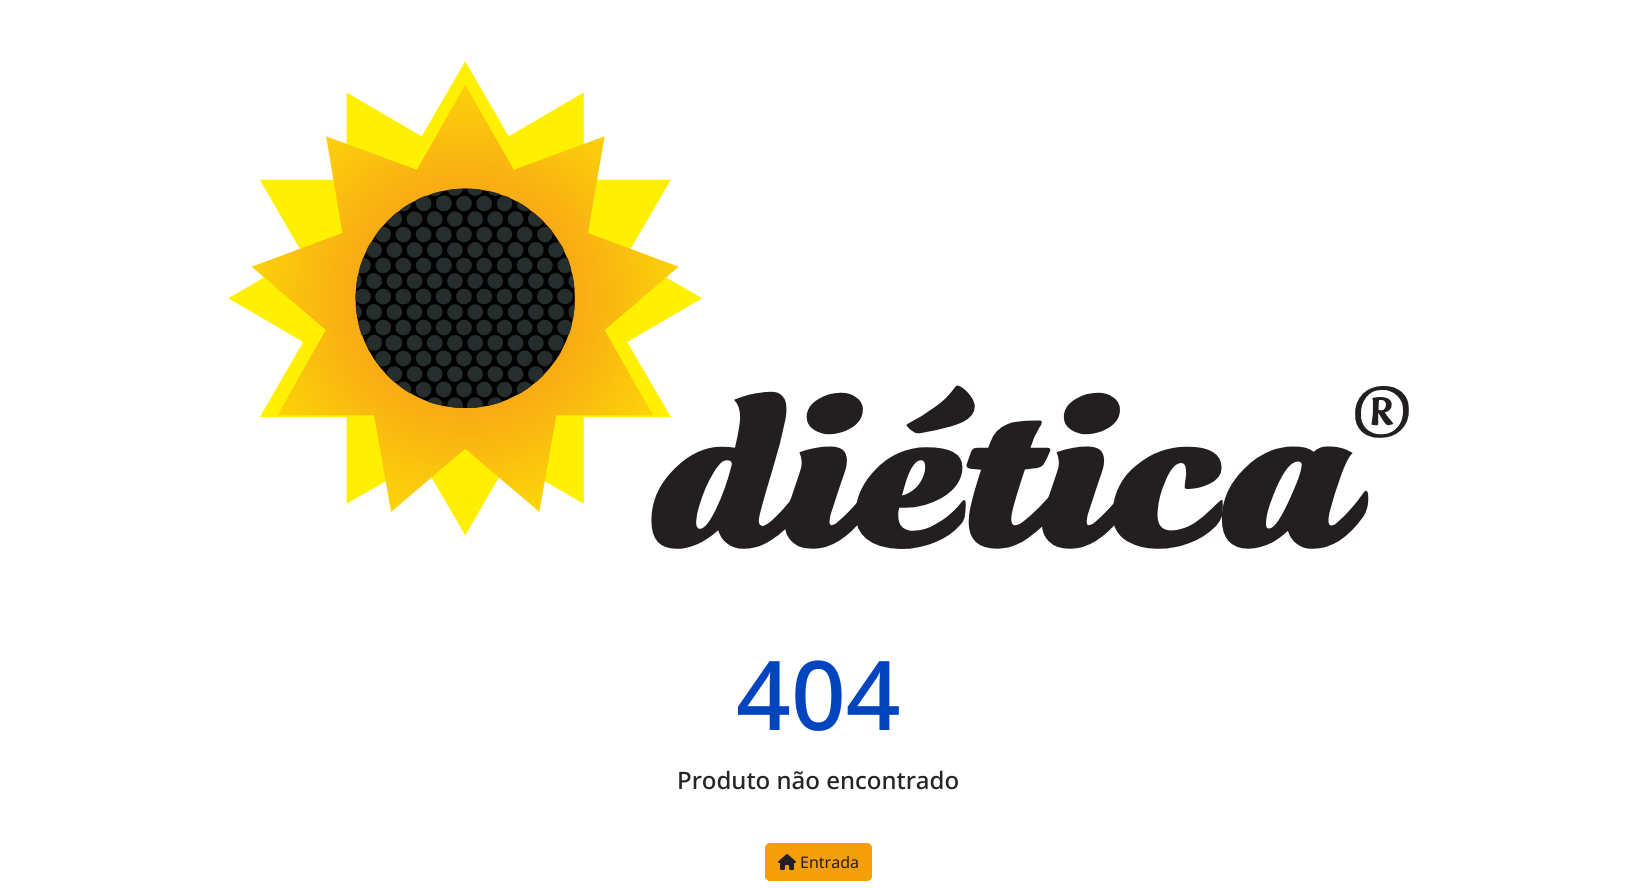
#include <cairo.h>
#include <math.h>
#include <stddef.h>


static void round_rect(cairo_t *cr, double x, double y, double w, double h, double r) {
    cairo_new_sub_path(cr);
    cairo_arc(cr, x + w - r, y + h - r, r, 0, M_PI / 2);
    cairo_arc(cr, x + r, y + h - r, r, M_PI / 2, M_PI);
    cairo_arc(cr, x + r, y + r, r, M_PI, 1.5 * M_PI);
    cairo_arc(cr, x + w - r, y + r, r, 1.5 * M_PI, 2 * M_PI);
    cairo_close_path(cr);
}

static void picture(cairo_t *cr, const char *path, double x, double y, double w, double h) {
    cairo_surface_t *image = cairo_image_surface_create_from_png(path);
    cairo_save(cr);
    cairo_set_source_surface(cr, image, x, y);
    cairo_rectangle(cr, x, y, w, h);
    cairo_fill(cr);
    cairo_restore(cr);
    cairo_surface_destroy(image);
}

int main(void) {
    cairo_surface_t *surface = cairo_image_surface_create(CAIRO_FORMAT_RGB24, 1637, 888);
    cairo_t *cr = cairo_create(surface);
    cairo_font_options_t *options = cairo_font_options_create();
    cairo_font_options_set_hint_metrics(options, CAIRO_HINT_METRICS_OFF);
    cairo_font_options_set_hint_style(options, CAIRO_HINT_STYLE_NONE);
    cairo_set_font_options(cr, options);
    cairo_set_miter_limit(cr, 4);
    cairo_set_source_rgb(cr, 1, 1, 1);
    cairo_paint(cr);
    picture(cr, "img1.png", 228, 61, 1181, 488);
    cairo_select_font_face(cr, "Noto Sans Medium", CAIRO_FONT_SLANT_NORMAL, CAIRO_FONT_WEIGHT_NORMAL);
    cairo_set_font_size(cr, 96);
    cairo_set_source_rgb(cr, 0.012, 0.271, 0.749);
    cairo_move_to(cr, 736, 730);
    cairo_show_text(cr, "404");
    cairo_set_font_size(cr, 24);
    cairo_set_source_rgb(cr, 0.145, 0.145, 0.145);
    cairo_move_to(cr, 677, 789);
    cairo_show_text(cr, "Produto não encontrado");
    cairo_set_source_rgb(cr, 0.957, 0.624, 0.039);
    round_rect(cr, 765.5, 843.5, 106, 37, 4.5);
    cairo_fill_preserve(cr);
    cairo_set_line_width(cr, 1);
    cairo_stroke(cr);
    picture(cr, "img2.png", 778, 854, 18, 16);
    cairo_select_font_face(cr, "Noto Sans", CAIRO_FONT_SLANT_NORMAL, CAIRO_FONT_WEIGHT_NORMAL);
    cairo_set_font_size(cr, 16);
    cairo_set_source_rgb(cr, 0.137, 0.122, 0.125);
    cairo_move_to(cr, 800, 868);
    cairo_show_text(cr, "Entrada");
    cairo_surface_write_to_png(surface, "page.png");
    cairo_font_options_destroy(options);
    cairo_destroy(cr);
    cairo_surface_destroy(surface);
    return 0;
}
